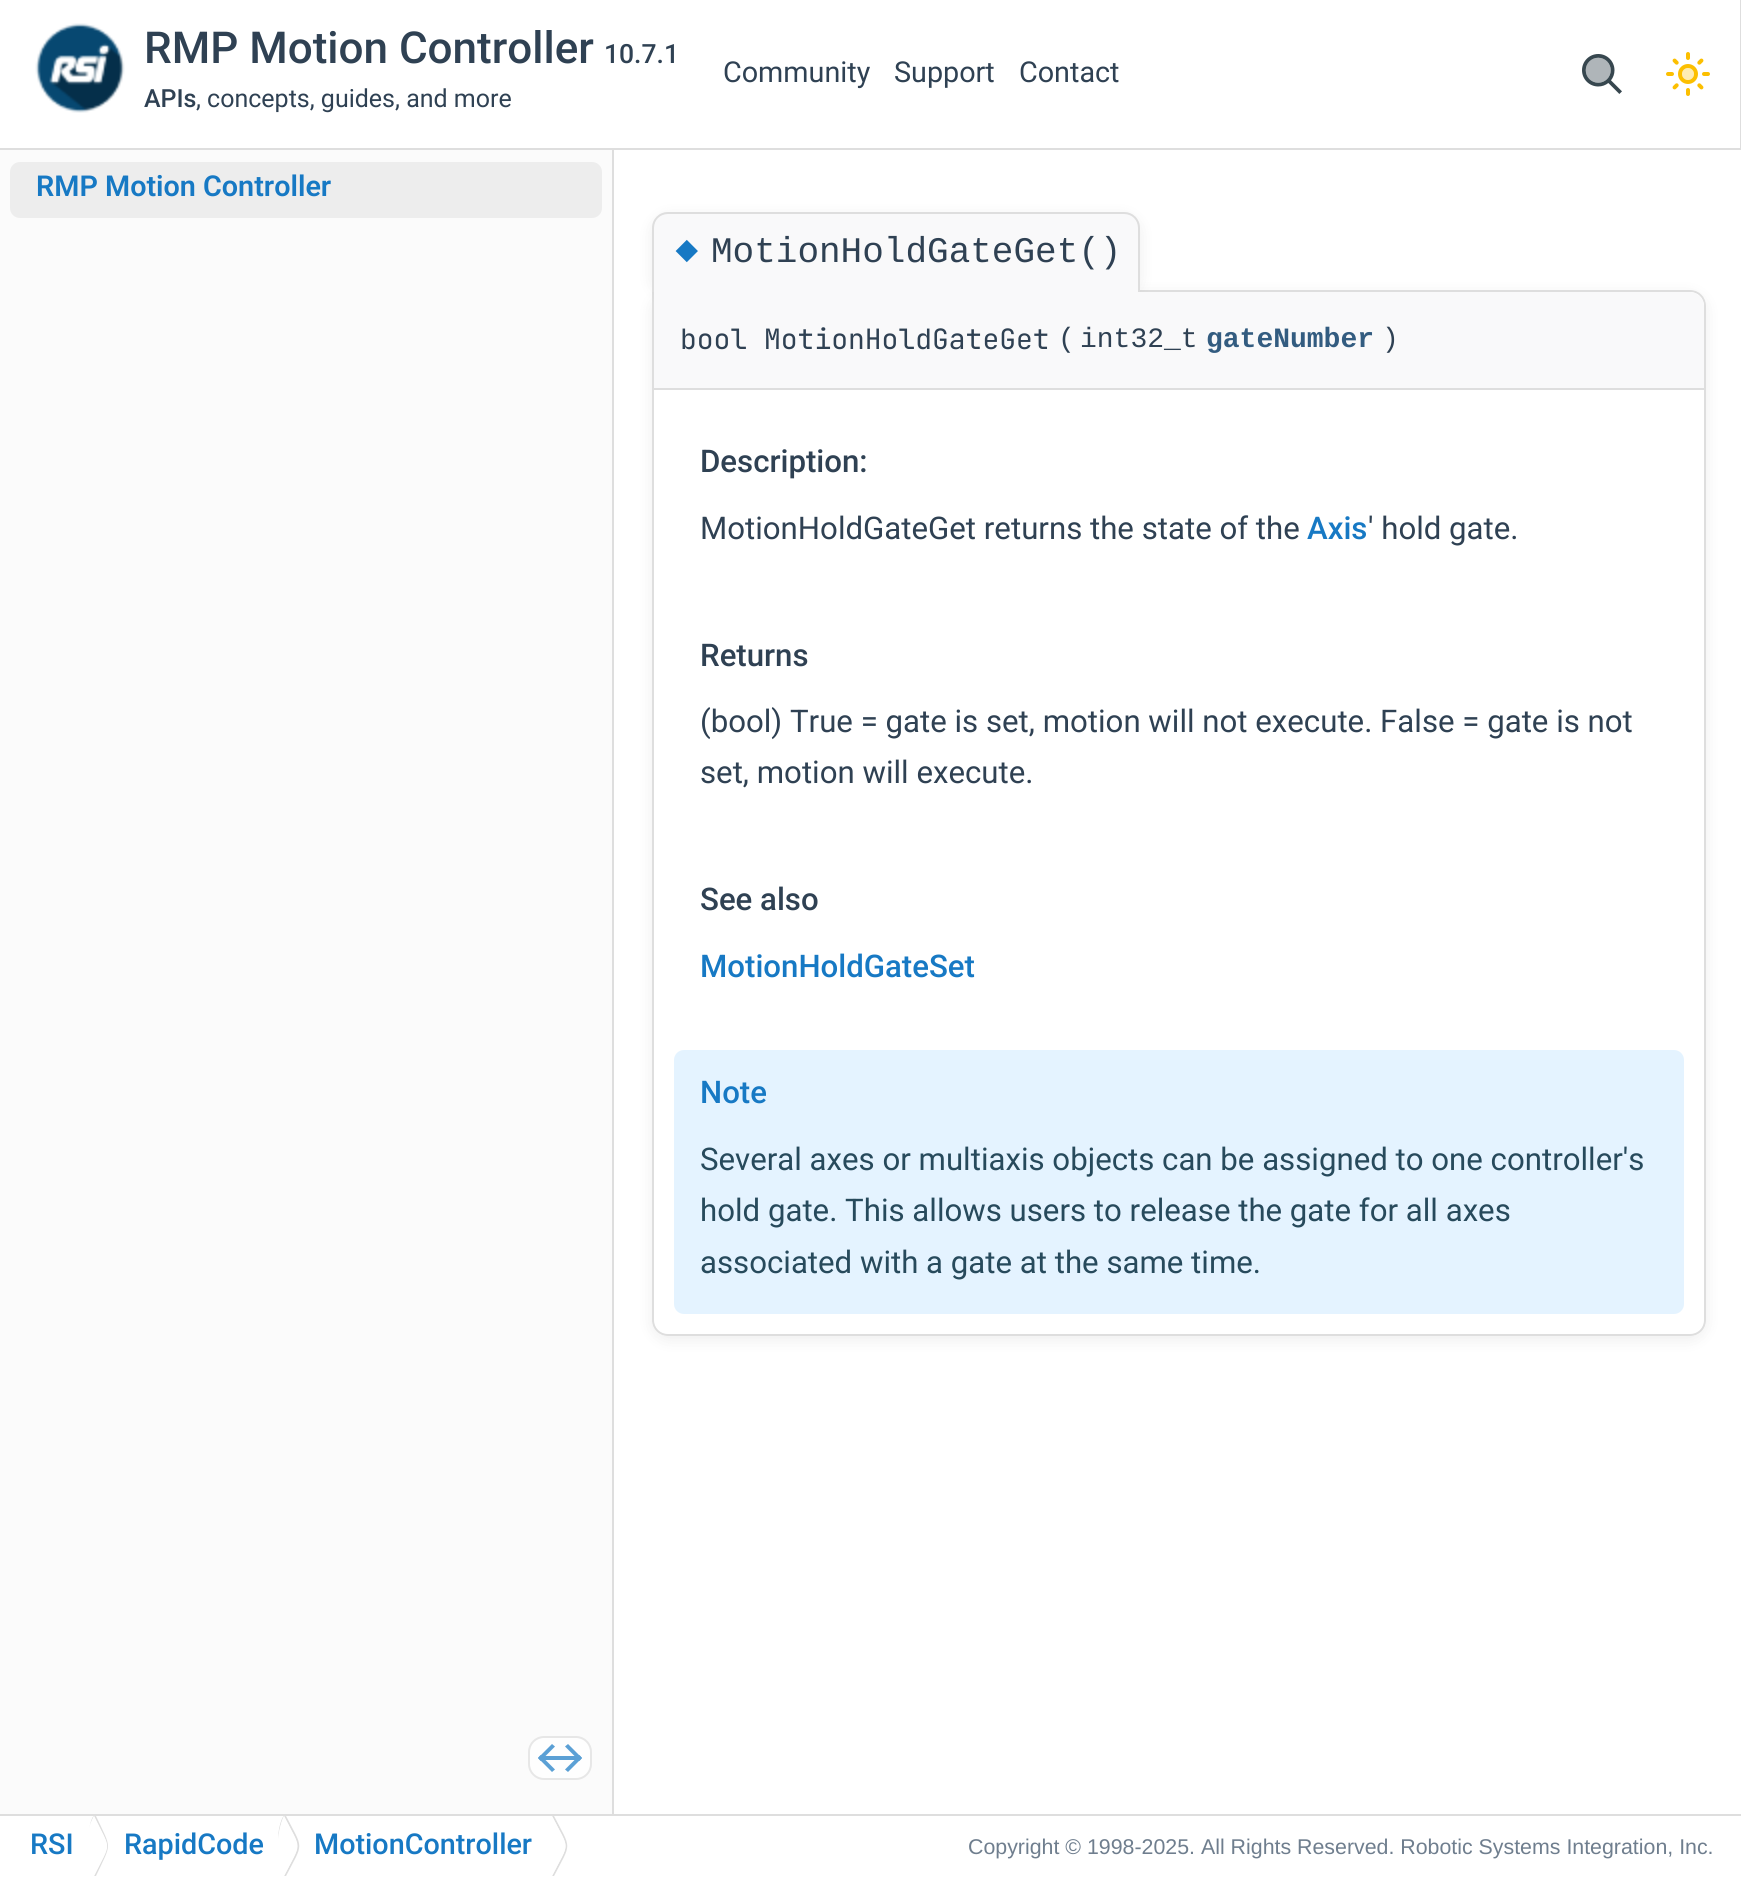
#include <cairo.h>
#include <math.h>
#include <stddef.h>


static void round_rect(cairo_t *cr, double x, double y, double w, double h, double r) {
    cairo_new_sub_path(cr);
    cairo_arc(cr, x + w - r, y + h - r, r, 0, M_PI / 2);
    cairo_arc(cr, x + r, y + h - r, r, M_PI / 2, M_PI);
    cairo_arc(cr, x + r, y + r, r, M_PI, 1.5 * M_PI);
    cairo_arc(cr, x + w - r, y + r, r, 1.5 * M_PI, 2 * M_PI);
    cairo_close_path(cr);
}

static void shadow(cairo_t *cr, double x, double y, double w, double h, double r, double blur, double alpha) {
    cairo_push_group_with_content(cr, CAIRO_CONTENT_ALPHA);
    cairo_set_operator(cr, CAIRO_OPERATOR_SOURCE);
    for (int i = 15; i >= -15 && fmin(w, h) + blur * i / 3 > 0; i -= 2) {
        double e = blur * i / 6;
        cairo_set_source_rgba(cr, 0, 0, 0, alpha * erfc((i - 1) / 8.5) / 2);
        round_rect(cr, x - e, y - e, w + 2 * e, h + 2 * e, fmax(0, fmin(r + e + blur * .6, fmin(w, h) / 2 + e)));
        cairo_fill(cr);
    }
    cairo_pattern_t *soft = cairo_pop_group(cr);
    cairo_mask(cr, soft);
    cairo_pattern_destroy(soft);
}

static void picture(cairo_t *cr, const char *path, double x, double y, double w, double h) {
    cairo_surface_t *image = cairo_image_surface_create_from_png(path);
    cairo_save(cr);
    cairo_set_source_surface(cr, image, x, y);
    cairo_rectangle(cr, x, y, w, h);
    cairo_fill(cr);
    cairo_restore(cr);
    cairo_surface_destroy(image);
}

int main(void) {
    cairo_surface_t *surface = cairo_image_surface_create(CAIRO_FORMAT_RGB24, 1741, 1877);
    cairo_t *cr = cairo_create(surface);
    cairo_font_options_t *options = cairo_font_options_create();
    cairo_font_options_set_hint_metrics(options, CAIRO_HINT_METRICS_OFF);
    cairo_font_options_set_hint_style(options, CAIRO_HINT_STYLE_NONE);
    cairo_set_font_options(cr, options);
    cairo_set_miter_limit(cr, 4);
    cairo_set_source_rgb(cr, 1, 1, 1);
    cairo_paint(cr);
    cairo_set_source_rgb(cr, 0.871, 0.871, 0.871);
    cairo_rectangle(cr, 1740, 0, 1, 150);
    cairo_fill(cr);
    cairo_rectangle(cr, 0, 148, 1741, 2);
    cairo_fill(cr);
    picture(cr, "img1.png", 35, 23, 90, 90);
    cairo_select_font_face(cr, "Roboto Medium", CAIRO_FONT_SLANT_NORMAL, CAIRO_FONT_WEIGHT_NORMAL);
    cairo_set_font_size(cr, 44);
    cairo_set_source_rgb(cr, 0.184, 0.255, 0.325);
    cairo_move_to(cr, 144, 63);
    cairo_show_text(cr, "RMP Motion Controller");
    cairo_set_font_size(cr, 26.5);
    cairo_move_to(cr, 604, 63);
    cairo_show_text(cr, "10.7.1");
    cairo_set_font_size(cr, 25);
    cairo_move_to(cr, 144, 107);
    cairo_show_text(cr, "APIs");
    cairo_select_font_face(cr, "Roboto", CAIRO_FONT_SLANT_NORMAL, CAIRO_FONT_WEIGHT_NORMAL);
    cairo_move_to(cr, 196, 107);
    cairo_show_text(cr, ", concepts, guides, and more");
    cairo_set_font_size(cr, 28.75);
    cairo_move_to(cr, 723, 82);
    cairo_show_text(cr, "Community");
    cairo_move_to(cr, 894, 82);
    cairo_show_text(cr, "Support");
    cairo_move_to(cr, 1019, 82);
    cairo_show_text(cr, "Contact");
    picture(cr, "img2.png", 1582, 54, 40, 40);
    picture(cr, "img3.png", 1666, 52, 44, 44);
    cairo_set_source_rgb(cr, 0.984, 0.984, 0.984);
    cairo_rectangle(cr, 0, 150, 612, 1664);
    cairo_fill(cr);
    cairo_set_source_rgb(cr, 0.871, 0.871, 0.871);
    cairo_rectangle(cr, 612, 150, 2, 1664);
    cairo_fill(cr);
    cairo_set_source_rgb(cr, 0.929, 0.929, 0.929);
    round_rect(cr, 10, 162, 592, 56, 10);
    cairo_fill(cr);
    cairo_select_font_face(cr, "Roboto SemiBold", CAIRO_FONT_SLANT_NORMAL, CAIRO_FONT_WEIGHT_NORMAL);
    cairo_set_source_rgb(cr, 0.09, 0.475, 0.769);
    cairo_move_to(cr, 36, 196);
    cairo_show_text(cr, "RMP Motion Controller");
    cairo_set_source_rgb(cr, 0.996, 0.996, 0.996);
    round_rect(cr, 529, 1737, 62, 42, 15);
    cairo_fill_preserve(cr);
    cairo_set_source_rgb(cr, 0.906, 0.906, 0.906);
    cairo_stroke(cr);
    cairo_set_source_rgb(cr, 0.357, 0.627, 0.835);
    cairo_new_path(cr);
    cairo_move_to(cr, 538, 1758);
    cairo_line_to(cr, 552, 1744);
    cairo_line_to(cr, 555, 1746.5);
    cairo_line_to(cr, 540.5, 1761);
    cairo_close_path(cr);
    cairo_fill(cr);
    cairo_new_path(cr);
    cairo_move_to(cr, 538, 1758);
    cairo_line_to(cr, 540.5, 1755);
    cairo_line_to(cr, 555, 1769.5);
    cairo_line_to(cr, 552, 1772);
    cairo_close_path(cr);
    cairo_move_to(cr, 565, 1746.5);
    cairo_line_to(cr, 568, 1744);
    cairo_line_to(cr, 582, 1758);
    cairo_line_to(cr, 579.5, 1761);
    cairo_close_path(cr);
    cairo_fill(cr);
    cairo_new_path(cr);
    cairo_move_to(cr, 565, 1769.5);
    cairo_line_to(cr, 579.5, 1755);
    cairo_line_to(cr, 582, 1758);
    cairo_line_to(cr, 568, 1772);
    cairo_close_path(cr);
    cairo_fill(cr);
    cairo_rectangle(cr, 542, 1756, 38, 4);
    cairo_fill(cr);
    cairo_save(cr);
    cairo_set_fill_rule(cr, CAIRO_FILL_RULE_EVEN_ODD);
    cairo_new_path(cr);
    cairo_move_to(cr, 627, 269);
    cairo_line_to(cr, 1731, 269);
    cairo_line_to(cr, 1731, 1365);
    cairo_line_to(cr, 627, 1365);
    cairo_close_path(cr);
    cairo_move_to(cr, 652, 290);
    cairo_line_to(cr, 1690, 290);
    cairo_curve_to(cr, 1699, 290, 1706, 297, 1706, 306);
    cairo_line_to(cr, 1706, 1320);
    cairo_curve_to(cr, 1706, 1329, 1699, 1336, 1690, 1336);
    cairo_line_to(cr, 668, 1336);
    cairo_curve_to(cr, 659, 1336, 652, 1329, 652, 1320);
    cairo_close_path(cr);
    cairo_clip(cr);
    cairo_set_source_rgb(cr, 0, 0, 0);
    shadow(cr, 652, 294, 1054, 1046, 16, 8, 0.07);
    cairo_restore(cr);
    cairo_new_path(cr);
    cairo_move_to(cr, 653, 291);
    cairo_line_to(cr, 1690, 291);
    cairo_curve_to(cr, 1698.5, 291, 1705, 297.5, 1705, 306);
    cairo_line_to(cr, 1705, 1320);
    cairo_curve_to(cr, 1705, 1328.5, 1698.5, 1335, 1690, 1335);
    cairo_line_to(cr, 668, 1335);
    cairo_curve_to(cr, 659.5, 1335, 653, 1328.5, 653, 1320);
    cairo_close_path(cr);
    cairo_set_source_rgb(cr, 0.871, 0.871, 0.871);
    cairo_stroke(cr);
    cairo_set_source_rgb(cr, 0.973, 0.976, 0.98);
    cairo_new_path(cr);
    cairo_move_to(cr, 654, 292);
    cairo_line_to(cr, 1690, 292);
    cairo_curve_to(cr, 1697.5, 292, 1704, 298.5, 1704, 306);
    cairo_line_to(cr, 1704, 390);
    cairo_line_to(cr, 654, 390);
    cairo_close_path(cr);
    cairo_fill(cr);
    cairo_set_source_rgb(cr, 0, 0, 0);
    shadow(cr, 652, 216, 488, 80, 16, 8, 0.07);
    cairo_set_source_rgb(cr, 0.973, 0.976, 0.98);
    cairo_new_path(cr);
    cairo_move_to(cr, 668, 212);
    cairo_line_to(cr, 1124, 212);
    cairo_curve_to(cr, 1133, 212, 1140, 219, 1140, 228);
    cairo_line_to(cr, 1140, 292);
    cairo_line_to(cr, 652, 292);
    cairo_line_to(cr, 652, 228);
    cairo_curve_to(cr, 652, 219, 659, 212, 668, 212);
    cairo_close_path(cr);
    cairo_fill(cr);
    cairo_set_source_rgb(cr, 0.871, 0.871, 0.871);
    cairo_set_fill_rule(cr, CAIRO_FILL_RULE_EVEN_ODD);
    cairo_new_path(cr);
    cairo_move_to(cr, 668, 212);
    cairo_line_to(cr, 1124, 212);
    cairo_curve_to(cr, 1133, 212, 1140, 219, 1140, 228);
    cairo_line_to(cr, 1140, 292);
    cairo_line_to(cr, 652, 292);
    cairo_line_to(cr, 652, 228);
    cairo_curve_to(cr, 652, 219, 659, 212, 668, 212);
    cairo_close_path(cr);
    cairo_move_to(cr, 668, 214);
    cairo_line_to(cr, 1124, 214);
    cairo_curve_to(cr, 1132, 214, 1138, 220, 1138, 228);
    cairo_line_to(cr, 1138, 292);
    cairo_line_to(cr, 654, 292);
    cairo_line_to(cr, 654, 228);
    cairo_curve_to(cr, 654, 220, 660, 214, 668, 214);
    cairo_close_path(cr);
    cairo_fill(cr);
    cairo_select_font_face(cr, "JetBrains Mono Medium", CAIRO_FONT_SLANT_NORMAL, CAIRO_FONT_WEIGHT_NORMAL);
    cairo_set_font_size(cr, 36);
    cairo_set_source_rgb(cr, 0.09, 0.475, 0.769);
    cairo_move_to(cr, 676, 264);
    cairo_show_text(cr, "◆");
    cairo_select_font_face(cr, "Liberation Mono", CAIRO_FONT_SLANT_NORMAL, CAIRO_FONT_WEIGHT_NORMAL);
    cairo_set_source_rgb(cr, 0.184, 0.255, 0.325);
    cairo_move_to(cr, 711, 262);
    cairo_show_text(cr, "MotionHoldGateGet()");
    cairo_set_source_rgb(cr, 0.973, 0.976, 0.98);
    cairo_new_path(cr);
    cairo_move_to(cr, 654, 292);
    cairo_line_to(cr, 1150, 292);
    cairo_curve_to(cr, 1159, 292, 1166, 299, 1166, 308);
    cairo_line_to(cr, 1166, 312);
    cairo_line_to(cr, 654, 312);
    cairo_close_path(cr);
    cairo_fill(cr);
    cairo_set_source_rgb(cr, 0.871, 0.871, 0.871);
    cairo_rectangle(cr, 654, 388, 1050, 2);
    cairo_fill(cr);
    cairo_select_font_face(cr, "JetBrains Mono", CAIRO_FONT_SLANT_NORMAL, CAIRO_FONT_WEIGHT_NORMAL);
    cairo_set_font_size(cr, 28);
    cairo_set_source_rgb(cr, 0.184, 0.255, 0.325);
    cairo_move_to(cr, 680, 349);
    cairo_show_text(cr, "bool MotionHoldGateGet");
    cairo_select_font_face(cr, "Liberation Mono", CAIRO_FONT_SLANT_NORMAL, CAIRO_FONT_WEIGHT_NORMAL);
    cairo_move_to(cr, 1058, 347);
    cairo_show_text(cr, "(");
    cairo_move_to(cr, 1080, 347);
    cairo_show_text(cr, "int32_t");
    cairo_select_font_face(cr, "Liberation Mono", CAIRO_FONT_SLANT_NORMAL, CAIRO_FONT_WEIGHT_BOLD);
    cairo_set_source_rgb(cr, 0.2, 0.361, 0.502);
    cairo_move_to(cr, 1206, 347);
    cairo_show_text(cr, "gateNumber");
    cairo_select_font_face(cr, "Liberation Mono", CAIRO_FONT_SLANT_NORMAL, CAIRO_FONT_WEIGHT_NORMAL);
    cairo_set_source_rgb(cr, 0.184, 0.255, 0.325);
    cairo_move_to(cr, 1382, 347);
    cairo_show_text(cr, ")");
    cairo_select_font_face(cr, "Roboto Medium", CAIRO_FONT_SLANT_NORMAL, CAIRO_FONT_WEIGHT_NORMAL);
    cairo_set_font_size(cr, 31.2);
    cairo_move_to(cr, 700, 472);
    cairo_show_text(cr, "Description:");
    cairo_select_font_face(cr, "Roboto", CAIRO_FONT_SLANT_NORMAL, CAIRO_FONT_WEIGHT_NORMAL);
    cairo_move_to(cr, 700, 539);
    cairo_show_text(cr, "MotionHoldGateGet returns the state of the");
    cairo_select_font_face(cr, "Roboto Medium", CAIRO_FONT_SLANT_NORMAL, CAIRO_FONT_WEIGHT_NORMAL);
    cairo_set_source_rgb(cr, 0.09, 0.475, 0.769);
    cairo_move_to(cr, 1307, 539);
    cairo_show_text(cr, "Axis");
    cairo_select_font_face(cr, "Roboto", CAIRO_FONT_SLANT_NORMAL, CAIRO_FONT_WEIGHT_NORMAL);
    cairo_set_source_rgb(cr, 0.184, 0.255, 0.325);
    cairo_move_to(cr, 1368, 539);
    cairo_show_text(cr, "' hold gate.");
    cairo_select_font_face(cr, "Roboto Medium", CAIRO_FONT_SLANT_NORMAL, CAIRO_FONT_WEIGHT_NORMAL);
    cairo_move_to(cr, 700, 666);
    cairo_show_text(cr, "Returns");
    cairo_select_font_face(cr, "Roboto", CAIRO_FONT_SLANT_NORMAL, CAIRO_FONT_WEIGHT_NORMAL);
    cairo_move_to(cr, 700, 732);
    cairo_show_text(cr, "(bool) True = gate is set, motion will not execute. False = gate is not");
    cairo_move_to(cr, 700, 783);
    cairo_show_text(cr, "set, motion will execute.");
    cairo_select_font_face(cr, "Roboto Medium", CAIRO_FONT_SLANT_NORMAL, CAIRO_FONT_WEIGHT_NORMAL);
    cairo_move_to(cr, 700, 910);
    cairo_show_text(cr, "See also");
    cairo_set_source_rgb(cr, 0.09, 0.475, 0.769);
    cairo_move_to(cr, 700, 977);
    cairo_show_text(cr, "MotionHoldGateSet");
    cairo_set_source_rgb(cr, 0.894, 0.953, 1);
    round_rect(cr, 674, 1050, 1010, 264, 10);
    cairo_fill(cr);
    cairo_set_source_rgb(cr, 0.09, 0.475, 0.769);
    cairo_move_to(cr, 700, 1103);
    cairo_show_text(cr, "Note");
    cairo_select_font_face(cr, "Roboto", CAIRO_FONT_SLANT_NORMAL, CAIRO_FONT_WEIGHT_NORMAL);
    cairo_set_source_rgb(cr, 0.153, 0.29, 0.361);
    cairo_move_to(cr, 700, 1170);
    cairo_show_text(cr, "Several axes or multiaxis objects can be assigned to one controller's");
    cairo_move_to(cr, 700, 1221);
    cairo_show_text(cr, "hold gate. This allows users to release the gate for all axes");
    cairo_move_to(cr, 700, 1273);
    cairo_show_text(cr, "associated with a gate at the same time.");
    cairo_set_source_rgb(cr, 0.871, 0.871, 0.871);
    cairo_rectangle(cr, 0, 1814, 1741, 2);
    cairo_fill(cr);
    cairo_select_font_face(cr, "Roboto Medium", CAIRO_FONT_SLANT_NORMAL, CAIRO_FONT_WEIGHT_NORMAL);
    cairo_set_font_size(cr, 28.75);
    cairo_set_source_rgb(cr, 0.09, 0.475, 0.769);
    cairo_move_to(cr, 30, 1854);
    cairo_show_text(cr, "RSI");
    cairo_save(cr);
    cairo_set_fill_rule(cr, CAIRO_FILL_RULE_WINDING);
    cairo_rectangle(cr, 0, 1816, 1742, 60);
    cairo_clip(cr);
    cairo_set_source_rgb(cr, 0.871, 0.871, 0.871);
    cairo_new_path(cr);
    cairo_move_to(cr, 95, 1814);
    cairo_curve_to(cr, 91, 1818, 90, 1825, 89, 1829);
    cairo_curve_to(cr, 90, 1824, 92, 1820, 94, 1816);
    cairo_curve_to(cr, 111, 1852, 112, 1840, 94, 1876);
    cairo_line_to(cr, 95, 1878);
    cairo_curve_to(cr, 104, 1859, 108, 1852, 108, 1846);
    cairo_curve_to(cr, 108, 1840, 104, 1833, 95, 1814);
    cairo_close_path(cr);
    cairo_fill(cr);
    cairo_restore(cr);
    cairo_set_source_rgb(cr, 1, 1, 1);
    cairo_set_fill_rule(cr, CAIRO_FILL_RULE_WINDING);
    cairo_new_path(cr);
    cairo_move_to(cr, 94, 1816);
    cairo_curve_to(cr, 111, 1851, 111, 1841, 94, 1876);
    cairo_curve_to(cr, 85, 1859, 85, 1833, 94, 1816);
    cairo_close_path(cr);
    cairo_fill(cr);
    cairo_set_source_rgb(cr, 0.09, 0.475, 0.769);
    cairo_move_to(cr, 124, 1854);
    cairo_show_text(cr, "RapidCode");
    cairo_save(cr);
    cairo_rectangle(cr, 0, 1816, 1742, 60);
    cairo_clip(cr);
    cairo_set_source_rgb(cr, 0.871, 0.871, 0.871);
    cairo_new_path(cr);
    cairo_move_to(cr, 285, 1814);
    cairo_curve_to(cr, 280, 1819, 278, 1833, 278, 1839);
    cairo_curve_to(cr, 279, 1831, 281, 1822, 284, 1816);
    cairo_curve_to(cr, 301, 1851, 302, 1841, 284, 1876);
    cairo_line_to(cr, 285, 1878);
    cairo_curve_to(cr, 304, 1841, 304, 1851, 285, 1814);
    cairo_close_path(cr);
    cairo_fill(cr);
    cairo_restore(cr);
    cairo_set_source_rgb(cr, 1, 1, 1);
    cairo_new_path(cr);
    cairo_move_to(cr, 284, 1816);
    cairo_curve_to(cr, 302, 1851, 302, 1841, 284, 1876);
    cairo_curve_to(cr, 276, 1859, 276, 1833, 284, 1816);
    cairo_close_path(cr);
    cairo_fill(cr);
    cairo_set_source_rgb(cr, 0.09, 0.475, 0.769);
    cairo_move_to(cr, 314, 1854);
    cairo_show_text(cr, "MotionController");
    cairo_save(cr);
    cairo_rectangle(cr, 0, 1816, 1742, 60);
    cairo_clip(cr);
    cairo_set_source_rgb(cr, 0.871, 0.871, 0.871);
    cairo_set_fill_rule(cr, CAIRO_FILL_RULE_EVEN_ODD);
    cairo_new_path(cr);
    cairo_move_to(cr, 553, 1814);
    cairo_line_to(cr, 552, 1816);
    cairo_curve_to(cr, 570, 1852, 570, 1840, 552, 1876);
    cairo_line_to(cr, 551, 1874);
    cairo_line_to(cr, 553, 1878);
    cairo_curve_to(cr, 572, 1841, 572, 1851, 553, 1814);
    cairo_close_path(cr);
    cairo_move_to(cr, 546, 1852);
    cairo_curve_to(cr, 546, 1845, 546, 1838, 547, 1832);
    cairo_curve_to(cr, 546, 1838, 546, 1845, 546, 1852);
    cairo_close_path(cr);
    cairo_fill(cr);
    cairo_restore(cr);
    cairo_set_source_rgb(cr, 1, 1, 1);
    cairo_new_path(cr);
    cairo_move_to(cr, 552, 1816);
    cairo_curve_to(cr, 570, 1851, 570, 1841, 552, 1876);
    cairo_curve_to(cr, 544, 1859, 544, 1833, 552, 1816);
    cairo_close_path(cr);
    cairo_fill(cr);
    cairo_select_font_face(cr, "Liberation Sans", CAIRO_FONT_SLANT_NORMAL, CAIRO_FONT_WEIGHT_NORMAL);
    cairo_set_font_size(cr, 21.35);
    cairo_set_source_rgb(cr, 0.435, 0.494, 0.557);
    cairo_move_to(cr, 968, 1854);
    cairo_show_text(cr, "Copyright © 1998-2025. All Rights Reserved. Robotic Systems Integration, Inc.");
    cairo_surface_write_to_png(surface, "page.png");
    cairo_font_options_destroy(options);
    cairo_destroy(cr);
    cairo_surface_destroy(surface);
    return 0;
}
